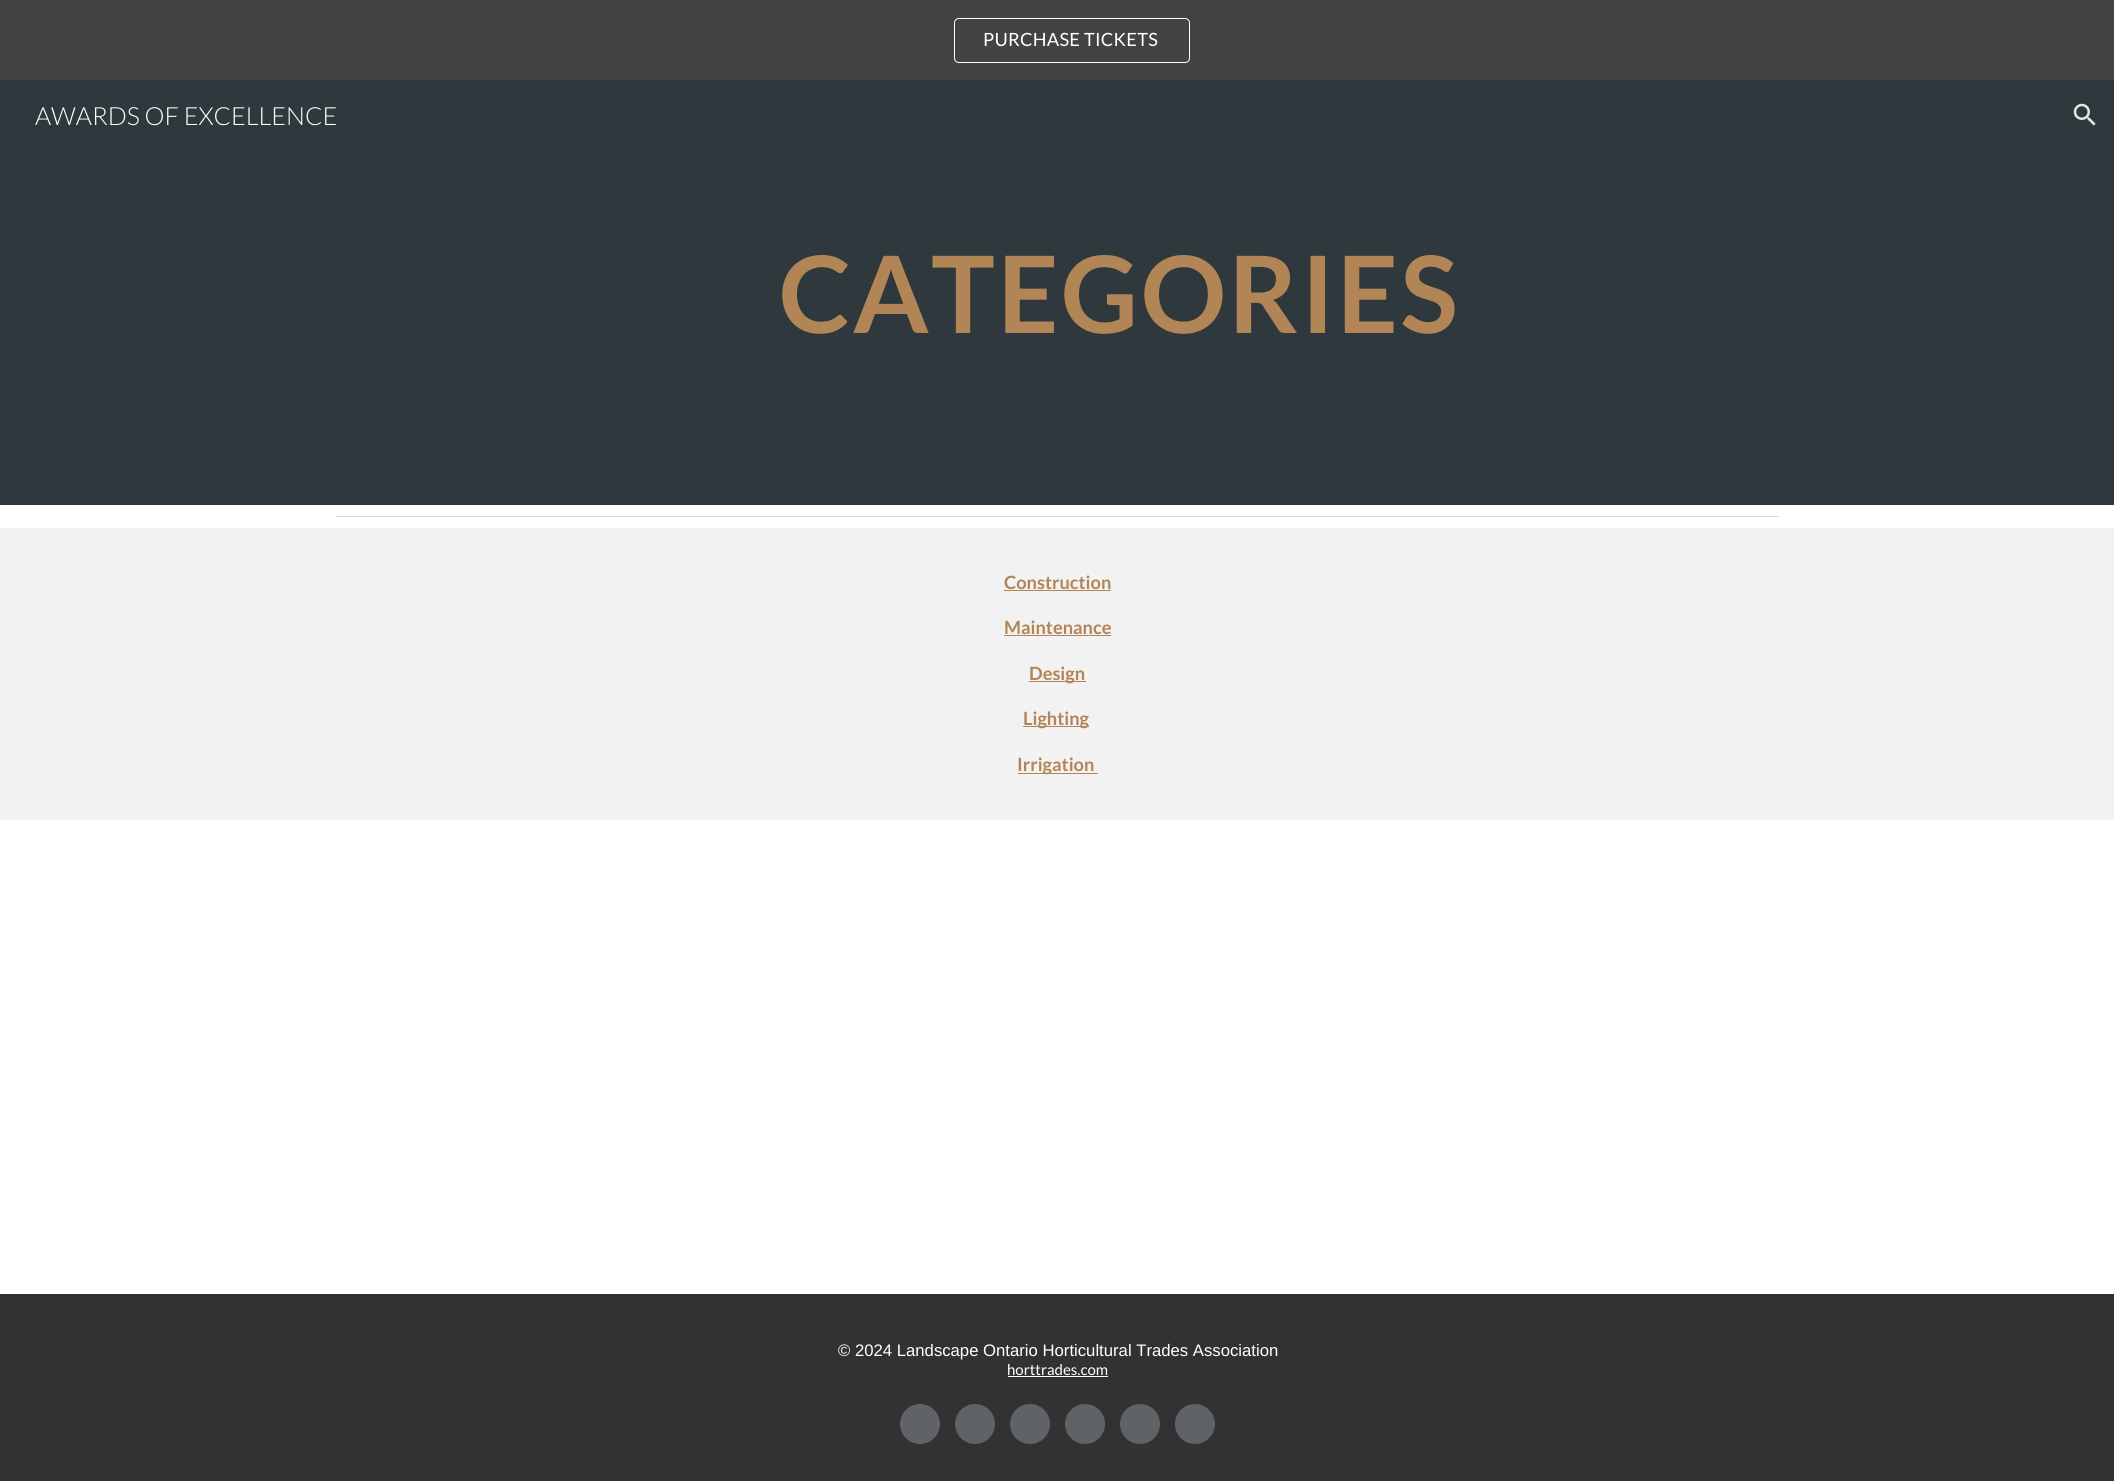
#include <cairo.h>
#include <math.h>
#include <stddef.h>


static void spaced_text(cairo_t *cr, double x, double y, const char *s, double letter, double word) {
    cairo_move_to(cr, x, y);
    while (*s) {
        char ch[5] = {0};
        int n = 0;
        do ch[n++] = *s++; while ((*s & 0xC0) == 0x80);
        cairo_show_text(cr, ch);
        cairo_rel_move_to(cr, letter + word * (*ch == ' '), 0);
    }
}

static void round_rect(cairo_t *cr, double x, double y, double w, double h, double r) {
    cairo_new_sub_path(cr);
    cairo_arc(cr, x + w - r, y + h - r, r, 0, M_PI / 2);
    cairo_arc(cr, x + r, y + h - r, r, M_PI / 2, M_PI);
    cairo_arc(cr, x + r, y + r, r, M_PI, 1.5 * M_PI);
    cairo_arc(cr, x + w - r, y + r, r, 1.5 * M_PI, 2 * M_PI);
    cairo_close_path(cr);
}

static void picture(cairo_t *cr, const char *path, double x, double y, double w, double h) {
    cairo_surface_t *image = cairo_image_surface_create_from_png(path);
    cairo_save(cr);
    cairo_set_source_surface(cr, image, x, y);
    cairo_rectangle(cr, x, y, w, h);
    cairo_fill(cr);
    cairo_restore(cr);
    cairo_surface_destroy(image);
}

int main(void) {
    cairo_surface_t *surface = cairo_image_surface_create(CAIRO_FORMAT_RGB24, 2114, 1481);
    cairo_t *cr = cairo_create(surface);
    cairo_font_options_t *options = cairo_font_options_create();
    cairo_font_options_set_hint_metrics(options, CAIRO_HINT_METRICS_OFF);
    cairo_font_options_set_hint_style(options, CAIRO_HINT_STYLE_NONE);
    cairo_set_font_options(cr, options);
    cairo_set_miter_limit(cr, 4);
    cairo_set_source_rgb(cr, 1, 1, 1);
    cairo_paint(cr);
    cairo_set_source_rgb(cr, 0.263, 0.263, 0.263);
    cairo_rectangle(cr, 0, 0, 2114, 80);
    cairo_fill(cr);
    round_rect(cr, 954.5, 18.5, 235, 44, 4.5);
    cairo_set_source_rgb(cr, 1, 1, 1);
    cairo_set_line_width(cr, 1);
    cairo_stroke(cr);
    cairo_select_font_face(cr, "Lato", CAIRO_FONT_SLANT_NORMAL, CAIRO_FONT_WEIGHT_NORMAL);
    cairo_set_font_size(cr, 18.25);
    spaced_text(cr, 983, 46, "PURCHASE TICKETS", 0.25, 0);
    cairo_set_source_rgb(cr, 0.184, 0.22, 0.239);
    cairo_rectangle(cr, 0, 80, 2114, 425);
    cairo_fill(cr);
    cairo_select_font_face(cr, "Lato Light", CAIRO_FONT_SLANT_NORMAL, CAIRO_FONT_WEIGHT_NORMAL);
    cairo_set_font_size(cr, 25);
    cairo_set_source_rgb(cr, 1, 1, 1);
    cairo_move_to(cr, 35, 125);
    cairo_show_text(cr, "AWARDS OF EXCELLENCE");
    picture(cr, "img1.png", 2073, 103, 23, 23);
    cairo_select_font_face(cr, "Lato", CAIRO_FONT_SLANT_NORMAL, CAIRO_FONT_WEIGHT_BOLD);
    cairo_set_font_size(cr, 106.75);
    cairo_set_source_rgb(cr, 0.698, 0.522, 0.341);
    spaced_text(cr, 779, 333, "CATEGORIES", 2.5, 0);
    cairo_set_source_rgb(cr, 0.851, 0.851, 0.851);
    cairo_rectangle(cr, 336, 516, 1443, 1);
    cairo_fill(cr);
    cairo_set_source_rgb(cr, 0.949, 0.949, 0.949);
    cairo_rectangle(cr, 0, 528, 2114, 292);
    cairo_fill(cr);
    cairo_set_font_size(cr, 18.25);
    cairo_set_source_rgb(cr, 0.698, 0.522, 0.341);
    cairo_move_to(cr, 1004, 589);
    cairo_show_text(cr, "Construction");
    cairo_rectangle(cr, 1004, 590, 107, 1);
    cairo_fill(cr);
    cairo_move_to(cr, 1004, 634);
    cairo_show_text(cr, "Maintenance");
    cairo_rectangle(cr, 1004, 635, 107, 1);
    cairo_fill(cr);
    cairo_rectangle(cr, 1029, 681, 57, 1);
    cairo_fill(cr);
    cairo_move_to(cr, 1029, 680);
    cairo_show_text(cr, "Design");
    cairo_rectangle(cr, 1023, 726, 66, 1);
    cairo_fill(cr);
    cairo_move_to(cr, 1023, 725);
    cairo_show_text(cr, "Lighting");
    cairo_rectangle(cr, 1018, 773, 80, 1);
    cairo_fill(cr);
    cairo_move_to(cr, 1017, 771);
    cairo_show_text(cr, "Irrigation");
    cairo_set_source_rgb(cr, 0.196, 0.196, 0.196);
    cairo_rectangle(cr, 0, 1294, 2114, 187);
    cairo_fill(cr);
    cairo_select_font_face(cr, "Liberation Sans", CAIRO_FONT_SLANT_NORMAL, CAIRO_FONT_WEIGHT_NORMAL);
    cairo_set_font_size(cr, 16.7);
    cairo_set_source_rgb(cr, 1, 1, 1);
    cairo_move_to(cr, 838, 1356);
    cairo_show_text(cr, "© 2024 Landscape Ontario Horticultural Trades Association");
    cairo_select_font_face(cr, "Lato", CAIRO_FONT_SLANT_NORMAL, CAIRO_FONT_WEIGHT_NORMAL);
    cairo_set_font_size(cr, 15);
    cairo_move_to(cr, 1007, 1375);
    cairo_show_text(cr, "horttrades.com");
    cairo_rectangle(cr, 1008, 1376, 100, 1);
    cairo_fill(cr);
    cairo_set_source_rgb(cr, 0.373, 0.388, 0.408);
    cairo_arc(cr, 920, 1424, 20, 0, 2 * M_PI);
    cairo_fill(cr);
    cairo_arc(cr, 975, 1424, 20, 0, 2 * M_PI);
    cairo_fill(cr);
    cairo_arc(cr, 1030, 1424, 20, 0, 2 * M_PI);
    cairo_fill(cr);
    cairo_arc(cr, 1085, 1424, 20, 0, 2 * M_PI);
    cairo_fill(cr);
    cairo_arc(cr, 1140, 1424, 20, 0, 2 * M_PI);
    cairo_fill(cr);
    cairo_arc(cr, 1195, 1424, 20, 0, 2 * M_PI);
    cairo_fill(cr);
    cairo_surface_write_to_png(surface, "page.png");
    cairo_font_options_destroy(options);
    cairo_destroy(cr);
    cairo_surface_destroy(surface);
    return 0;
}
